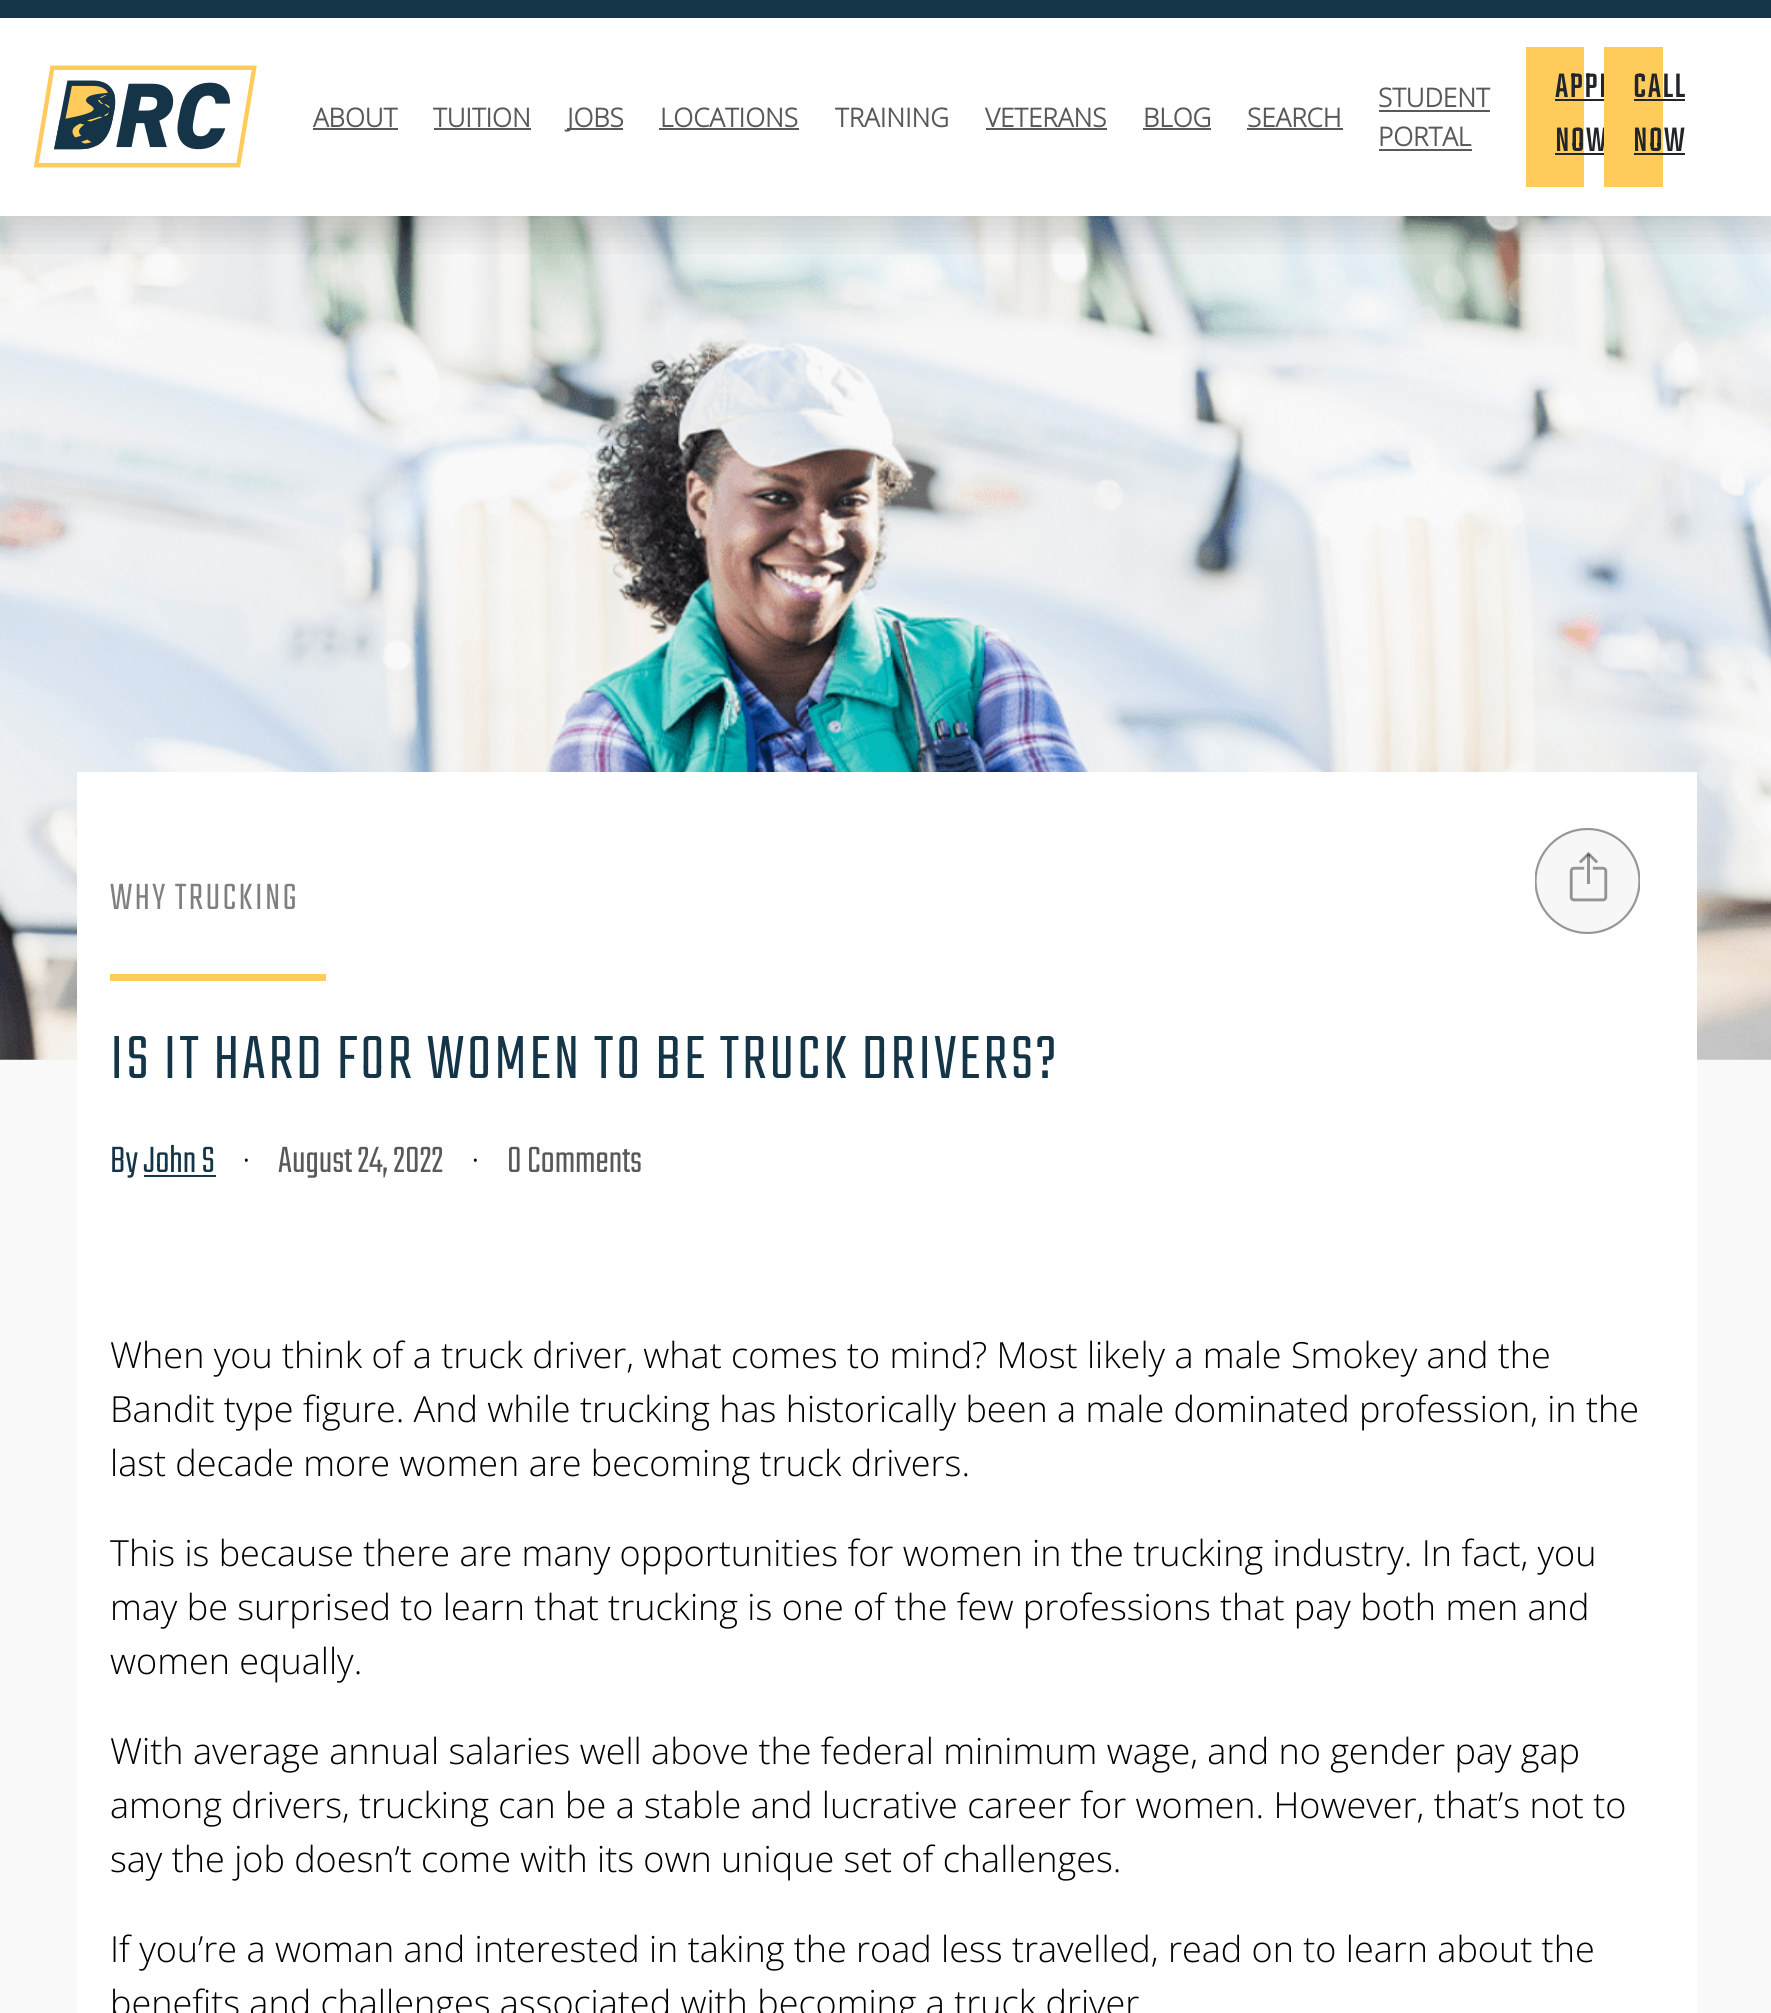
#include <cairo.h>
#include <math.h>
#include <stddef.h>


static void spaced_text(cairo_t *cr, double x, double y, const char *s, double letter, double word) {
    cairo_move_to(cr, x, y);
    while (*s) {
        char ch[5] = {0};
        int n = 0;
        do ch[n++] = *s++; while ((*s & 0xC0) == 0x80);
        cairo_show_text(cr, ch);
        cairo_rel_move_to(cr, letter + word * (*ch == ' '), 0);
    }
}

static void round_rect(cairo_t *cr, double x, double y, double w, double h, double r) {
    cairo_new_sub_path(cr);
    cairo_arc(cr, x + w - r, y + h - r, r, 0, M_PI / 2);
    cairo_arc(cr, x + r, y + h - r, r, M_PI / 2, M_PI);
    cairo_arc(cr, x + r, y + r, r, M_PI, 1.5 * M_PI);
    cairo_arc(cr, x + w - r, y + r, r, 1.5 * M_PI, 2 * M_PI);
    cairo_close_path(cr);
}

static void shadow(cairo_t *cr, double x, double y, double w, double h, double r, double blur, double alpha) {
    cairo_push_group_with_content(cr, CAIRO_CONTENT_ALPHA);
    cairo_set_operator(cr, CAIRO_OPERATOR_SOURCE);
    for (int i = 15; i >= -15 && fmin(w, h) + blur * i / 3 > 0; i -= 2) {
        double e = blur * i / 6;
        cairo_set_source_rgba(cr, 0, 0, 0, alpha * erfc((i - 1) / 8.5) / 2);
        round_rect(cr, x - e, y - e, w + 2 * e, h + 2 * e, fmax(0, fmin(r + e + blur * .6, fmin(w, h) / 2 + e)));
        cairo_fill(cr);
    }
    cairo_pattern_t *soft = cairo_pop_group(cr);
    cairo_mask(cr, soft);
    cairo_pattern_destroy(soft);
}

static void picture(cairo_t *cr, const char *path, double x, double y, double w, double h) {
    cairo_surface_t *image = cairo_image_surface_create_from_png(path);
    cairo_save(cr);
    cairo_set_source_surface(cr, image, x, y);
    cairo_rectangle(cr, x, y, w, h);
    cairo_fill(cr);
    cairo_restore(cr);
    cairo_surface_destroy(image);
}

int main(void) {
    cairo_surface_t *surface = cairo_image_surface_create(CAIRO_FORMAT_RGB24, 1771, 2013);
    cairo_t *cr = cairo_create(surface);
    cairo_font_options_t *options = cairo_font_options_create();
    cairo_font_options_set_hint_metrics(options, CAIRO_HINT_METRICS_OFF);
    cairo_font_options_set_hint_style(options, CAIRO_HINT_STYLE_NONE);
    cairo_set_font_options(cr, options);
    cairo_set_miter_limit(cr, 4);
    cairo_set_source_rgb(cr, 1, 1, 1);
    cairo_paint(cr);
    cairo_set_source_rgb(cr, 0.976, 0.976, 0.976);
    cairo_rectangle(cr, 0, 1059, 1771, 954);
    cairo_fill(cr);
    picture(cr, "img2.png", 0, 216, 1771, 844);
    cairo_save(cr);
    cairo_rectangle(cr, 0, 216, 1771, 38);
    cairo_clip(cr);
    cairo_set_source_rgb(cr, 0, 0, 0);
    shadow(cr, 0, 18, 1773, 216, 0, 18, 0.15);
    cairo_restore(cr);
    cairo_set_source_rgb(cr, 0.082, 0.204, 0.282);
    cairo_rectangle(cr, 0, 0, 1771, 18);
    cairo_fill(cr);
    picture(cr, "img1.png", 34, 65, 223, 103);
    cairo_select_font_face(cr, "Open Sans", CAIRO_FONT_SLANT_NORMAL, CAIRO_FONT_WEIGHT_BOLD);
    cairo_set_font_size(cr, 26);
    cairo_set_source_rgb(cr, 0.349, 0.349, 0.349);
    cairo_move_to(cr, 313, 127);
    cairo_show_text(cr, "ABOUT");
    cairo_rectangle(cr, 313, 128, 85, 2);
    cairo_fill(cr);
    cairo_move_to(cr, 433, 127);
    cairo_show_text(cr, "TUITION");
    cairo_rectangle(cr, 434, 128, 97, 2);
    cairo_fill(cr);
    cairo_rectangle(cr, 567, 128, 56, 2);
    cairo_fill(cr);
    cairo_move_to(cr, 567, 127);
    cairo_show_text(cr, "JOBS");
    cairo_move_to(cr, 660, 127);
    cairo_show_text(cr, "LOCATIONS");
    cairo_rectangle(cr, 659, 128, 140, 2);
    cairo_fill(cr);
    cairo_move_to(cr, 835, 127);
    cairo_show_text(cr, "TRAINING");
    cairo_move_to(cr, 985, 127);
    cairo_show_text(cr, "VETERANS");
    cairo_rectangle(cr, 986, 128, 121, 2);
    cairo_fill(cr);
    cairo_move_to(cr, 1143, 127);
    cairo_show_text(cr, "BLOG");
    cairo_rectangle(cr, 1143, 128, 68, 2);
    cairo_fill(cr);
    cairo_move_to(cr, 1247, 127);
    cairo_show_text(cr, "SEARCH");
    cairo_rectangle(cr, 1247, 128, 96, 2);
    cairo_fill(cr);
    cairo_move_to(cr, 1378, 107);
    cairo_show_text(cr, "STUDENT");
    cairo_rectangle(cr, 1379, 110, 111, 2);
    cairo_fill(cr);
    cairo_move_to(cr, 1378, 146);
    cairo_show_text(cr, "PORTAL");
    cairo_rectangle(cr, 1379, 149, 93, 2);
    cairo_fill(cr);
    cairo_set_source_rgb(cr, 1, 0.8, 0.357);
    cairo_rectangle(cr, 1526, 47, 58, 140);
    cairo_fill(cr);
    cairo_select_font_face(cr, "Teko", CAIRO_FONT_SLANT_NORMAL, CAIRO_FONT_WEIGHT_BOLD);
    cairo_set_font_size(cr, 36);
    cairo_set_source_rgb(cr, 0.129, 0.145, 0.161);
    spaced_text(cr, 1555, 97, "APPL", 2.25, 0);
    cairo_rectangle(cr, 1555, 99, 49, 2);
    cairo_fill(cr);
    spaced_text(cr, 1555, 151, "NOW", 2.25, 0);
    cairo_rectangle(cr, 1555, 153, 54, 2);
    cairo_fill(cr);
    cairo_set_source_rgb(cr, 1, 0.8, 0.357);
    cairo_rectangle(cr, 1604, 47, 59, 140);
    cairo_fill(cr);
    cairo_set_source_rgb(cr, 0.129, 0.145, 0.161);
    spaced_text(cr, 1633, 97, "CALL", 2.25, 0);
    cairo_rectangle(cr, 1634, 99, 51, 2);
    cairo_fill(cr);
    spaced_text(cr, 1633, 151, "NOW", 2.25, 0);
    cairo_rectangle(cr, 1634, 153, 51, 2);
    cairo_fill(cr);
    cairo_set_source_rgb(cr, 1, 1, 1);
    cairo_rectangle(cr, 77, 772, 1620, 1241);
    cairo_fill(cr);
    cairo_select_font_face(cr, "Teko Light", CAIRO_FONT_SLANT_NORMAL, CAIRO_FONT_WEIGHT_NORMAL);
    cairo_set_font_size(cr, 40.5);
    cairo_set_source_rgb(cr, 0.502, 0.502, 0.502);
    spaced_text(cr, 110, 909, "WHY TRUCKING", 2.25, 0);
    cairo_set_source_rgb(cr, 1, 0.8, 0.357);
    cairo_rectangle(cr, 110, 974, 216, 7);
    cairo_fill(cr);
    cairo_set_font_size(cr, 67.5);
    cairo_set_source_rgb(cr, 0.082, 0.204, 0.282);
    spaced_text(cr, 110, 1078, "IS IT HARD FOR WOMEN TO BE TRUCK DRIVERS?", 3.05, 0);
    cairo_set_font_size(cr, 40.5);
    cairo_move_to(cr, 110, 1172);
    cairo_show_text(cr, "By John S");
    cairo_rectangle(cr, 144, 1175, 72, 2);
    cairo_fill(cr);
    cairo_select_font_face(cr, "Open Sans Light", CAIRO_FONT_SLANT_NORMAL, CAIRO_FONT_WEIGHT_NORMAL);
    cairo_set_font_size(cr, 36);
    cairo_set_source_rgb(cr, 0, 0, 0);
    cairo_move_to(cr, 242, 1172);
    cairo_show_text(cr, "·");
    cairo_select_font_face(cr, "Teko Light", CAIRO_FONT_SLANT_NORMAL, CAIRO_FONT_WEIGHT_NORMAL);
    cairo_set_font_size(cr, 40.5);
    cairo_set_source_rgb(cr, 0.349, 0.349, 0.349);
    cairo_move_to(cr, 278, 1172);
    cairo_show_text(cr, "August 24, 2022");
    cairo_select_font_face(cr, "Open Sans Light", CAIRO_FONT_SLANT_NORMAL, CAIRO_FONT_WEIGHT_NORMAL);
    cairo_set_font_size(cr, 36);
    cairo_set_source_rgb(cr, 0, 0, 0);
    cairo_move_to(cr, 471, 1172);
    cairo_show_text(cr, "·");
    cairo_select_font_face(cr, "Teko Light", CAIRO_FONT_SLANT_NORMAL, CAIRO_FONT_WEIGHT_NORMAL);
    cairo_set_font_size(cr, 40.5);
    cairo_set_source_rgb(cr, 0.349, 0.349, 0.349);
    cairo_move_to(cr, 507, 1172);
    cairo_show_text(cr, "0 Comments");
    picture(cr, "img3.png", 1535, 828, 105, 106);
    cairo_select_font_face(cr, "Open Sans Light", CAIRO_FONT_SLANT_NORMAL, CAIRO_FONT_WEIGHT_NORMAL);
    cairo_set_font_size(cr, 36);
    cairo_set_source_rgb(cr, 0, 0, 0);
    cairo_move_to(cr, 110, 1368);
    cairo_show_text(cr, "When you think of a truck driver, what comes to mind? Most likely a male Smokey and the");
    cairo_move_to(cr, 110, 1422);
    cairo_show_text(cr, "Bandit type figure. And while trucking has historically been a male dominated profession, in the");
    cairo_move_to(cr, 110, 1476);
    cairo_show_text(cr, "last decade more women are becoming truck drivers.");
    cairo_move_to(cr, 110, 1566);
    cairo_show_text(cr, "This is because there are many opportunities for women in the trucking industry. In fact, you");
    cairo_move_to(cr, 110, 1620);
    cairo_show_text(cr, "may be surprised to learn that trucking is one of the few professions that pay both men and");
    cairo_move_to(cr, 110, 1674);
    cairo_show_text(cr, "women equally.");
    cairo_move_to(cr, 110, 1764);
    cairo_show_text(cr, "With average annual salaries well above the federal minimum wage, and no gender pay gap");
    cairo_move_to(cr, 110, 1818);
    cairo_show_text(cr, "among drivers, trucking can be a stable and lucrative career for women. However, that’s not to");
    cairo_move_to(cr, 110, 1872);
    cairo_show_text(cr, "say the job doesn’t come with its own unique set of challenges.");
    cairo_move_to(cr, 110, 1962);
    cairo_show_text(cr, "If you’re a woman and interested in taking the road less travelled, read on to learn about the");
    cairo_move_to(cr, 110, 2016);
    cairo_show_text(cr, "benefits and challenges associated with becoming a truck driver");
    cairo_surface_write_to_png(surface, "page.png");
    cairo_font_options_destroy(options);
    cairo_destroy(cr);
    cairo_surface_destroy(surface);
    return 0;
}
